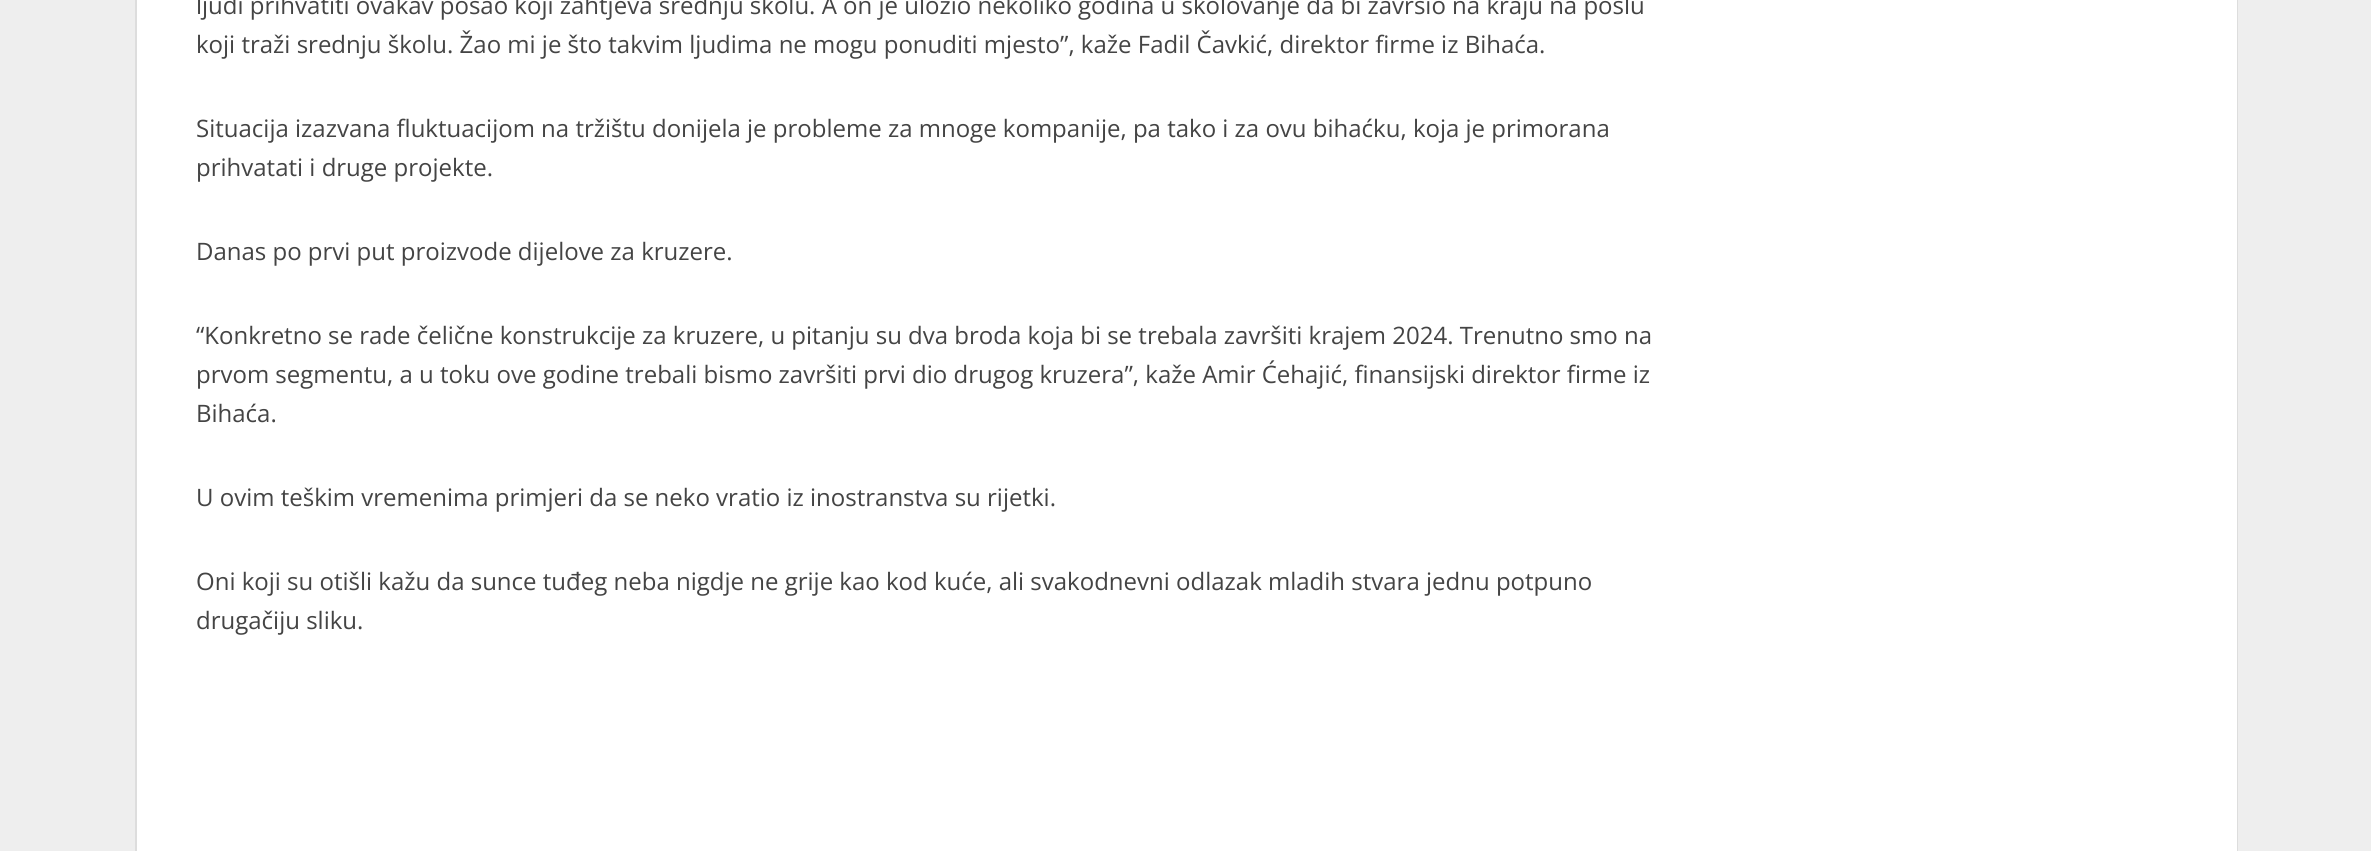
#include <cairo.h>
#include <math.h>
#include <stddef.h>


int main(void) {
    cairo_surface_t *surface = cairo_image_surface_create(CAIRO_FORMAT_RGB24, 2371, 851);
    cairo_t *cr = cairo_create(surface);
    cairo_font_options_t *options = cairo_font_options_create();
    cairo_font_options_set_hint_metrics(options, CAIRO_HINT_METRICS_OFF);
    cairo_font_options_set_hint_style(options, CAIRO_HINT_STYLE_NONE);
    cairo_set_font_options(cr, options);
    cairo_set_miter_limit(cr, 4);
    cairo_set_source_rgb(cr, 0.933, 0.933, 0.933);
    cairo_paint(cr);
    cairo_rectangle(cr, 136, -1, 2101, 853);
    cairo_set_source_rgb(cr, 0.867, 0.867, 0.867);
    cairo_stroke(cr);
    cairo_set_source_rgb(cr, 1, 1, 1);
    cairo_rectangle(cr, 137, 0, 2100, 851);
    cairo_fill(cr);
    cairo_select_font_face(cr, "Open Sans", CAIRO_FONT_SLANT_NORMAL, CAIRO_FONT_WEIGHT_NORMAL);
    cairo_set_font_size(cr, 24);
    cairo_set_source_rgb(cr, 0.267, 0.267, 0.267);
    cairo_move_to(cr, 196, 14);
    cairo_show_text(cr, "ljudi prihvatiti ovakav posao koji zahtjeva srednju školu. A on je uložio nekoliko godina u školovanje da bi završio na kraju na poslu");
    cairo_move_to(cr, 196, 53);
    cairo_show_text(cr, "koji traži srednju školu. Žao mi je što takvim ljudima ne mogu ponuditi mjesto”, kaže Fadil Čavkić, direktor firme iz Bihaća.");
    cairo_move_to(cr, 196, 137);
    cairo_show_text(cr, "Situacija izazvana fluktuacijom na tržištu donijela je probleme za mnoge kompanije, pa tako i za ovu bihaćku, koja je primorana");
    cairo_move_to(cr, 196, 176);
    cairo_show_text(cr, "prihvatati i druge projekte.");
    cairo_move_to(cr, 196, 260);
    cairo_show_text(cr, "Danas po prvi put proizvode dijelove za kruzere.");
    cairo_move_to(cr, 196, 344);
    cairo_show_text(cr, "“Konkretno se rade čelične konstrukcije za kruzere, u pitanju su dva broda koja bi se trebala završiti krajem 2024. Trenutno smo na");
    cairo_move_to(cr, 196, 383);
    cairo_show_text(cr, "prvom segmentu, a u toku ove godine trebali bismo završiti prvi dio drugog kruzera”, kaže Amir Ćehajić, finansijski direktor firme iz");
    cairo_move_to(cr, 196, 422);
    cairo_show_text(cr, "Bihaća.");
    cairo_move_to(cr, 196, 506);
    cairo_show_text(cr, "U ovim teškim vremenima primjeri da se neko vratio iz inostranstva su rijetki.");
    cairo_move_to(cr, 196, 590);
    cairo_show_text(cr, "Oni koji su otišli kažu da sunce tuđeg neba nigdje ne grije kao kod kuće, ali svakodnevni odlazak mladih stvara jednu potpuno");
    cairo_move_to(cr, 196, 629);
    cairo_show_text(cr, "drugačiju sliku.");
    cairo_surface_write_to_png(surface, "page.png");
    cairo_font_options_destroy(options);
    cairo_destroy(cr);
    cairo_surface_destroy(surface);
    return 0;
}
